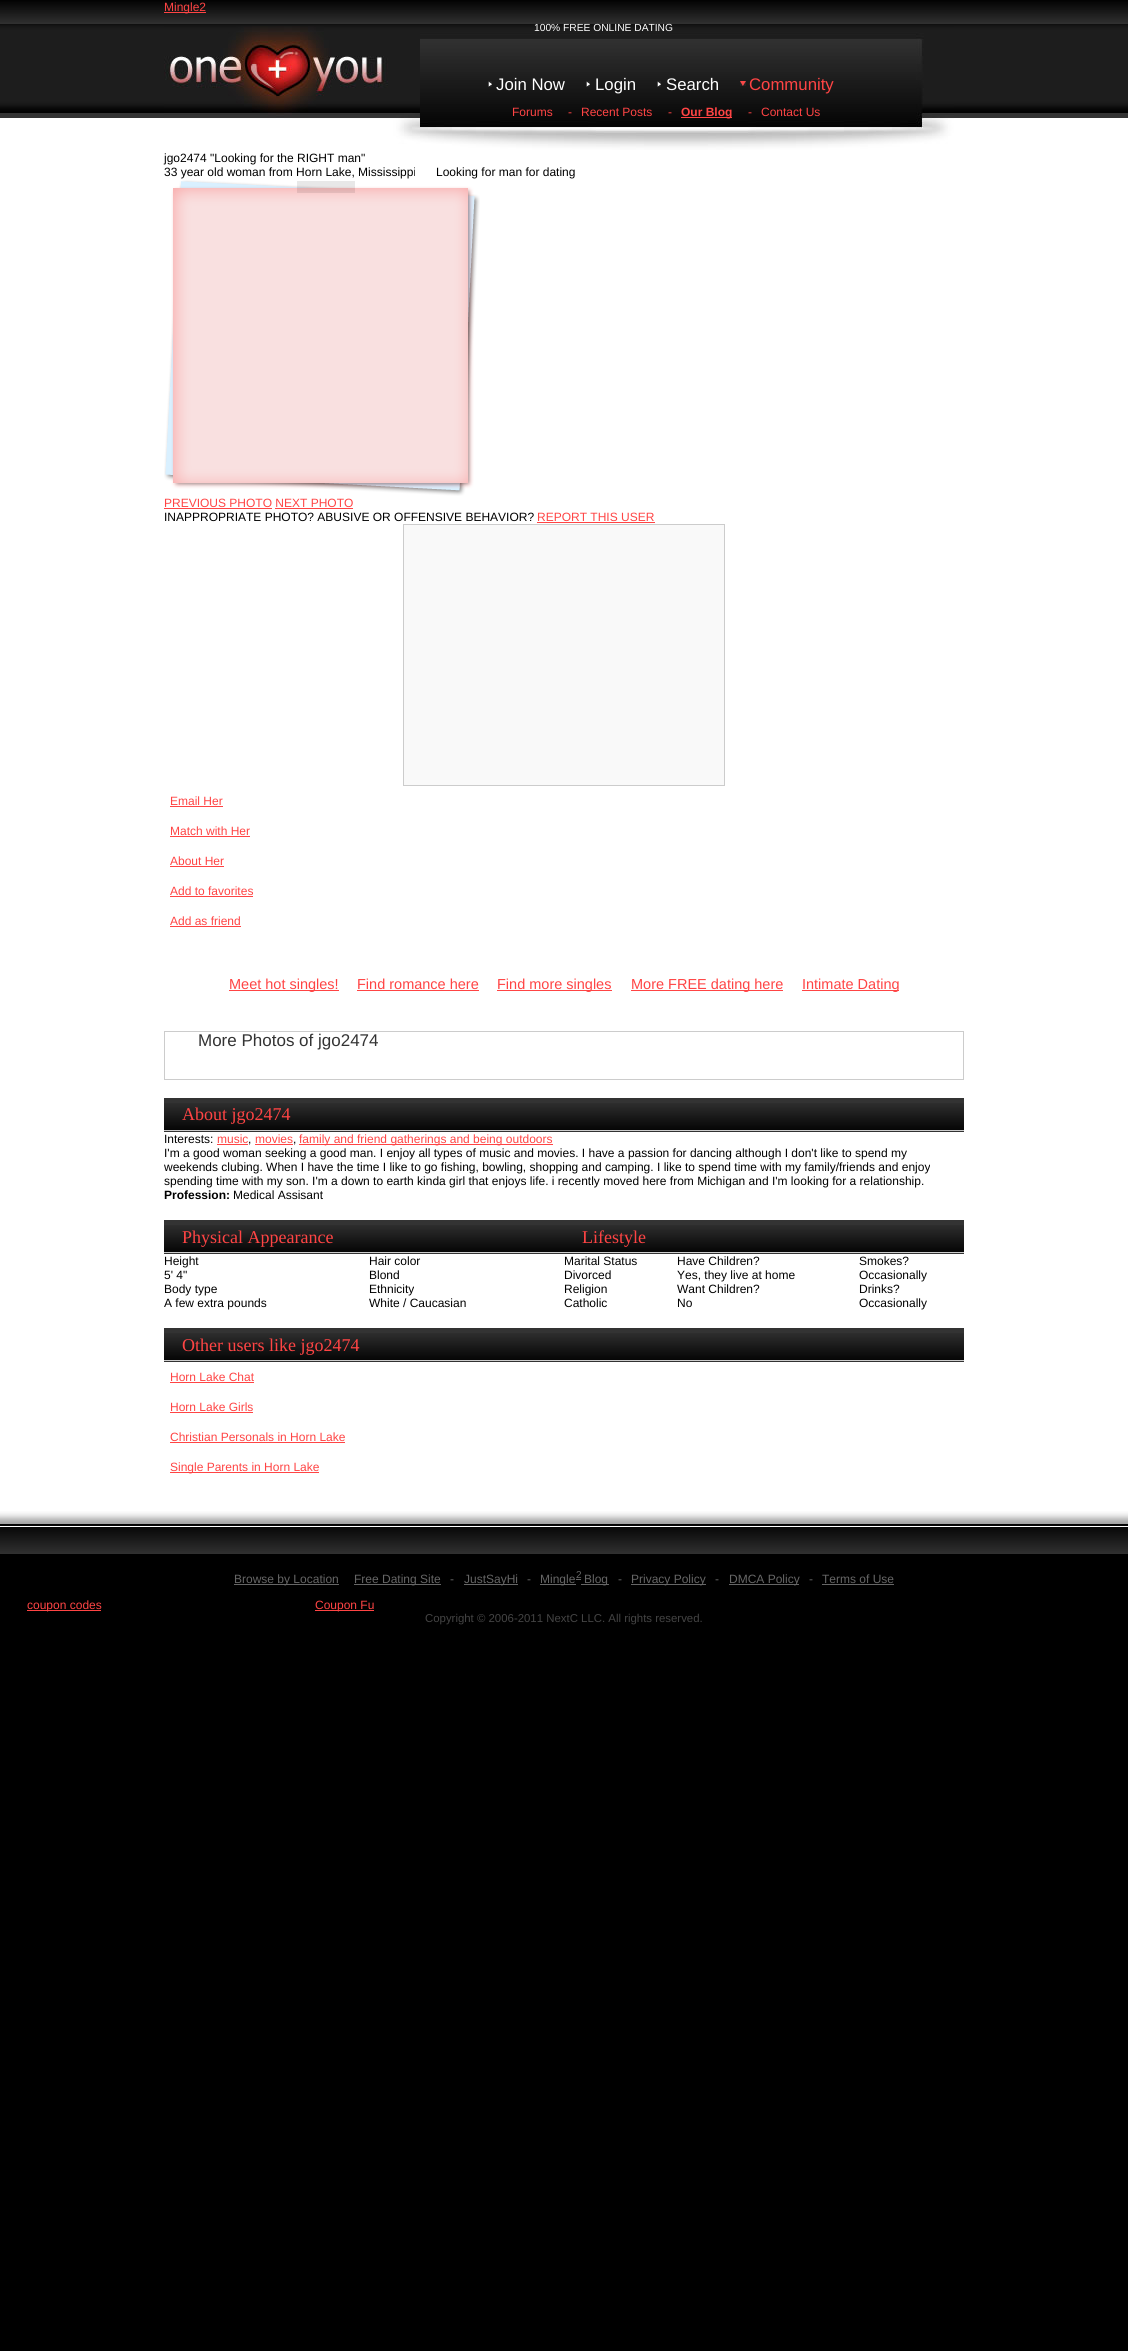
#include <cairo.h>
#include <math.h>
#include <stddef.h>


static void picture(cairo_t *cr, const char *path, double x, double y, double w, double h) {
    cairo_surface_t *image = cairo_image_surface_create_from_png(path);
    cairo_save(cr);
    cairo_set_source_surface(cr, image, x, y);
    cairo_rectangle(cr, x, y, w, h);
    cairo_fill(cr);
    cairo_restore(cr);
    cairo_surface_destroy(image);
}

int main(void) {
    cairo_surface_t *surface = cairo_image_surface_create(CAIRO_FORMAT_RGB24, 1128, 2351);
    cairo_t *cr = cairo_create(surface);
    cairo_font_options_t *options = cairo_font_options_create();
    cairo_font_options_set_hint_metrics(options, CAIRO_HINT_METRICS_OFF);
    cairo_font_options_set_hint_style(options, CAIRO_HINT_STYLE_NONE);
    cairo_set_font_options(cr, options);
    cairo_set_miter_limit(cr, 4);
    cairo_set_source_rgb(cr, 0, 0, 0);
    cairo_paint(cr);
    cairo_set_source_rgb(cr, 1, 1, 1);
    cairo_rectangle(cr, 0, 118, 1128, 1393);
    cairo_fill(cr);
    picture(cr, "img1.png", 0, 0, 1128, 118);
    picture(cr, "img2.png", 164, 26, 790, 124);
    cairo_set_source_rgb(cr, 1, 0.267, 0.267);
    cairo_rectangle(cr, 164, 12, 42, 1);
    cairo_fill(cr);
    cairo_select_font_face(cr, "Liberation Sans", CAIRO_FONT_SLANT_NORMAL, CAIRO_FONT_WEIGHT_NORMAL);
    cairo_set_font_size(cr, 12);
    cairo_move_to(cr, 164, 11);
    cairo_show_text(cr, "Mingle2");
    cairo_set_font_size(cr, 10.25);
    cairo_set_source_rgb(cr, 1, 1, 1);
    cairo_move_to(cr, 534, 31);
    cairo_show_text(cr, "100% FREE ONLINE DATING");
    picture(cr, "img3.png", 488, 81, 4, 6);
    cairo_set_font_size(cr, 16.75);
    cairo_move_to(cr, 496, 90);
    cairo_show_text(cr, "Join Now");
    picture(cr, "img3.png", 586, 81, 4, 6);
    cairo_move_to(cr, 595, 90);
    cairo_show_text(cr, "Login");
    picture(cr, "img3.png", 657, 81, 4, 6);
    cairo_move_to(cr, 666, 90);
    cairo_show_text(cr, "Search");
    picture(cr, "img4.png", 740, 81, 6, 5);
    cairo_set_source_rgb(cr, 1, 0.267, 0.267);
    cairo_move_to(cr, 749, 90);
    cairo_show_text(cr, "Community");
    cairo_set_font_size(cr, 12);
    cairo_move_to(cr, 512, 116);
    cairo_show_text(cr, "Forums");
    cairo_move_to(cr, 568, 116);
    cairo_show_text(cr, "-");
    cairo_move_to(cr, 581, 116);
    cairo_show_text(cr, "Recent Posts");
    cairo_move_to(cr, 668, 116);
    cairo_show_text(cr, "-");
    cairo_rectangle(cr, 681, 117, 51, 1);
    cairo_fill(cr);
    cairo_select_font_face(cr, "Liberation Sans", CAIRO_FONT_SLANT_NORMAL, CAIRO_FONT_WEIGHT_BOLD);
    cairo_move_to(cr, 681, 116);
    cairo_show_text(cr, "Our Blog");
    cairo_select_font_face(cr, "Liberation Sans", CAIRO_FONT_SLANT_NORMAL, CAIRO_FONT_WEIGHT_NORMAL);
    cairo_move_to(cr, 748, 116);
    cairo_show_text(cr, "-");
    cairo_move_to(cr, 761, 116);
    cairo_show_text(cr, "Contact Us");
    cairo_set_source_rgb(cr, 0, 0, 0);
    cairo_move_to(cr, 164, 162);
    cairo_show_text(cr, "jgo2474 \"Looking for the RIGHT man\"");
    cairo_move_to(cr, 164, 176);
    cairo_show_text(cr, "33 year old woman from Horn Lake, Mississippi");
    cairo_move_to(cr, 436, 176);
    cairo_show_text(cr, "Looking for man for dating");
    picture(cr, "img5.png", 164, 180, 316, 316);
    cairo_set_source_rgb(cr, 1, 0.267, 0.267);
    cairo_move_to(cr, 164, 507);
    cairo_show_text(cr, "PREVIOUS PHOTO NEXT PHOTO");
    cairo_rectangle(cr, 164, 508, 108, 1);
    cairo_fill(cr);
    cairo_rectangle(cr, 275, 508, 78, 1);
    cairo_fill(cr);
    cairo_set_source_rgb(cr, 0, 0, 0);
    cairo_move_to(cr, 164, 521);
    cairo_show_text(cr, "INAPPROPRIATE PHOTO? ABUSIVE OR OFFENSIVE BEHAVIOR?");
    cairo_set_source_rgb(cr, 1, 0.267, 0.267);
    cairo_move_to(cr, 537, 521);
    cairo_show_text(cr, "REPORT THIS USER");
    cairo_rectangle(cr, 537, 522, 118, 1);
    cairo_fill(cr);
    cairo_set_source_rgb(cr, 0.973, 0.973, 0.973);
    cairo_rectangle(cr, 403.5, 524.5, 321, 261);
    cairo_fill_preserve(cr);
    cairo_set_source_rgb(cr, 0.8, 0.8, 0.8);
    cairo_set_line_width(cr, 1);
    cairo_stroke(cr);
    cairo_set_source_rgb(cr, 1, 0.267, 0.267);
    cairo_move_to(cr, 170, 805);
    cairo_show_text(cr, "Email Her");
    cairo_rectangle(cr, 170, 806, 53, 1);
    cairo_fill(cr);
    cairo_move_to(cr, 170, 835);
    cairo_show_text(cr, "Match with Her");
    cairo_rectangle(cr, 170, 836, 80, 1);
    cairo_fill(cr);
    cairo_move_to(cr, 170, 865);
    cairo_show_text(cr, "About Her");
    cairo_rectangle(cr, 170, 866, 54, 1);
    cairo_fill(cr);
    cairo_move_to(cr, 170, 895);
    cairo_show_text(cr, "Add to favorites");
    cairo_rectangle(cr, 170, 896, 83, 1);
    cairo_fill(cr);
    cairo_move_to(cr, 170, 925);
    cairo_show_text(cr, "Add as friend");
    cairo_rectangle(cr, 170, 926, 71, 1);
    cairo_fill(cr);
    cairo_rectangle(cr, 229, 990, 110, 1);
    cairo_fill(cr);
    cairo_set_font_size(cr, 14.5);
    cairo_move_to(cr, 229, 989);
    cairo_show_text(cr, "Meet hot singles!");
    cairo_move_to(cr, 357, 989);
    cairo_show_text(cr, "Find romance here");
    cairo_rectangle(cr, 357, 990, 122, 1);
    cairo_fill(cr);
    cairo_rectangle(cr, 497, 990, 115, 1);
    cairo_fill(cr);
    cairo_move_to(cr, 497, 989);
    cairo_show_text(cr, "Find more singles");
    cairo_rectangle(cr, 631, 990, 152, 1);
    cairo_fill(cr);
    cairo_move_to(cr, 631, 989);
    cairo_show_text(cr, "More FREE dating here");
    cairo_rectangle(cr, 802, 990, 97, 1);
    cairo_fill(cr);
    cairo_move_to(cr, 802, 989);
    cairo_show_text(cr, "Intimate Dating");
    cairo_rectangle(cr, 164.5, 1031.5, 799, 48);
    cairo_set_source_rgb(cr, 0.8, 0.8, 0.8);
    cairo_stroke(cr);
    cairo_set_font_size(cr, 17);
    cairo_set_source_rgb(cr, 0.2, 0.2, 0.2);
    cairo_move_to(cr, 198, 1046);
    cairo_show_text(cr, "More Photos of jgo2474");
    cairo_rectangle(cr, 164, 1098, 800, 34);
    cairo_fill(cr);
    picture(cr, "img6.png", 164, 1103, 800, 28);
    cairo_select_font_face(cr, "Liberation Serif", CAIRO_FONT_SLANT_NORMAL, CAIRO_FONT_WEIGHT_NORMAL);
    cairo_set_font_size(cr, 18);
    cairo_set_source_rgb(cr, 1, 0.267, 0.267);
    cairo_move_to(cr, 182, 1120);
    cairo_show_text(cr, "About jgo2474");
    cairo_select_font_face(cr, "Liberation Sans", CAIRO_FONT_SLANT_NORMAL, CAIRO_FONT_WEIGHT_NORMAL);
    cairo_set_font_size(cr, 12);
    cairo_set_source_rgb(cr, 0, 0, 0);
    cairo_move_to(cr, 164, 1143);
    cairo_show_text(cr, "Interests:");
    cairo_set_source_rgb(cr, 1, 0.267, 0.267);
    cairo_move_to(cr, 217, 1143);
    cairo_show_text(cr, "music");
    cairo_rectangle(cr, 217, 1144, 31, 1);
    cairo_fill(cr);
    cairo_set_source_rgb(cr, 0, 0, 0);
    cairo_move_to(cr, 248, 1143);
    cairo_show_text(cr, ",");
    cairo_set_source_rgb(cr, 1, 0.267, 0.267);
    cairo_move_to(cr, 255, 1143);
    cairo_show_text(cr, "movies");
    cairo_rectangle(cr, 255, 1144, 38, 1);
    cairo_fill(cr);
    cairo_set_source_rgb(cr, 0, 0, 0);
    cairo_move_to(cr, 293, 1143);
    cairo_show_text(cr, ",");
    cairo_set_source_rgb(cr, 1, 0.267, 0.267);
    cairo_rectangle(cr, 299, 1144, 254, 1);
    cairo_fill(cr);
    cairo_move_to(cr, 299, 1143);
    cairo_show_text(cr, "family and friend gatherings and being outdoors");
    cairo_set_source_rgb(cr, 0, 0, 0);
    cairo_move_to(cr, 164, 1157);
    cairo_show_text(cr, "I'm a good woman seeking a good man. I enjoy all types of music and movies. I have a passion for dancing although I don't like to spend my");
    cairo_move_to(cr, 164, 1171);
    cairo_show_text(cr, "weekends clubing. When I have the time I like to go fishing, bowling, shopping and camping. I like to spend time with my family/friends and enjoy");
    cairo_move_to(cr, 164, 1185);
    cairo_show_text(cr, "spending time with my son. I'm a down to earth kinda girl that enjoys life. i recently moved here from Michigan and I'm looking for a relationship.");
    cairo_select_font_face(cr, "Liberation Sans", CAIRO_FONT_SLANT_NORMAL, CAIRO_FONT_WEIGHT_BOLD);
    cairo_move_to(cr, 164, 1199);
    cairo_show_text(cr, "Profession:");
    cairo_select_font_face(cr, "Liberation Sans", CAIRO_FONT_SLANT_NORMAL, CAIRO_FONT_WEIGHT_NORMAL);
    cairo_move_to(cr, 233, 1199);
    cairo_show_text(cr, "Medical Assisant");
    cairo_set_source_rgb(cr, 0.2, 0.2, 0.2);
    cairo_rectangle(cr, 164, 1220, 800, 34);
    cairo_fill(cr);
    picture(cr, "img7.png", 164, 1225, 400, 28);
    cairo_select_font_face(cr, "Liberation Serif", CAIRO_FONT_SLANT_NORMAL, CAIRO_FONT_WEIGHT_NORMAL);
    cairo_set_font_size(cr, 18);
    cairo_set_source_rgb(cr, 1, 0.267, 0.267);
    cairo_move_to(cr, 182, 1243);
    cairo_show_text(cr, "Physical Appearance");
    cairo_select_font_face(cr, "Liberation Sans", CAIRO_FONT_SLANT_NORMAL, CAIRO_FONT_WEIGHT_NORMAL);
    cairo_set_font_size(cr, 12);
    cairo_set_source_rgb(cr, 0, 0, 0);
    cairo_move_to(cr, 164, 1265);
    cairo_show_text(cr, "Height");
    cairo_move_to(cr, 164, 1279);
    cairo_show_text(cr, "5' 4\"");
    cairo_move_to(cr, 369, 1265);
    cairo_show_text(cr, "Hair color");
    cairo_move_to(cr, 369, 1279);
    cairo_show_text(cr, "Blond");
    cairo_move_to(cr, 164, 1293);
    cairo_show_text(cr, "Body type");
    cairo_move_to(cr, 164, 1307);
    cairo_show_text(cr, "A few extra pounds");
    cairo_move_to(cr, 369, 1293);
    cairo_show_text(cr, "Ethnicity");
    cairo_move_to(cr, 369, 1307);
    cairo_show_text(cr, "White / Caucasian");
    picture(cr, "img7.png", 564, 1225, 400, 28);
    cairo_select_font_face(cr, "Liberation Serif", CAIRO_FONT_SLANT_NORMAL, CAIRO_FONT_WEIGHT_NORMAL);
    cairo_set_font_size(cr, 18);
    cairo_set_source_rgb(cr, 1, 0.267, 0.267);
    cairo_move_to(cr, 582, 1243);
    cairo_show_text(cr, "Lifestyle");
    cairo_select_font_face(cr, "Liberation Sans", CAIRO_FONT_SLANT_NORMAL, CAIRO_FONT_WEIGHT_NORMAL);
    cairo_set_font_size(cr, 12);
    cairo_set_source_rgb(cr, 0, 0, 0);
    cairo_move_to(cr, 564, 1265);
    cairo_show_text(cr, "Marital Status");
    cairo_move_to(cr, 564, 1279);
    cairo_show_text(cr, "Divorced");
    cairo_move_to(cr, 677, 1265);
    cairo_show_text(cr, "Have Children?");
    cairo_move_to(cr, 677, 1279);
    cairo_show_text(cr, "Yes, they live at home");
    cairo_move_to(cr, 859, 1265);
    cairo_show_text(cr, "Smokes?");
    cairo_move_to(cr, 859, 1279);
    cairo_show_text(cr, "Occasionally");
    cairo_move_to(cr, 564, 1293);
    cairo_show_text(cr, "Religion");
    cairo_move_to(cr, 564, 1307);
    cairo_show_text(cr, "Catholic");
    cairo_move_to(cr, 677, 1293);
    cairo_show_text(cr, "Want Children?");
    cairo_move_to(cr, 677, 1307);
    cairo_show_text(cr, "No");
    cairo_move_to(cr, 859, 1293);
    cairo_show_text(cr, "Drinks?");
    cairo_move_to(cr, 859, 1307);
    cairo_show_text(cr, "Occasionally");
    cairo_set_source_rgb(cr, 0.2, 0.2, 0.2);
    cairo_rectangle(cr, 164, 1328, 800, 34);
    cairo_fill(cr);
    picture(cr, "img6.png", 164, 1333, 800, 28);
    cairo_select_font_face(cr, "Liberation Serif", CAIRO_FONT_SLANT_NORMAL, CAIRO_FONT_WEIGHT_NORMAL);
    cairo_set_font_size(cr, 18);
    cairo_set_source_rgb(cr, 1, 0.267, 0.267);
    cairo_move_to(cr, 182, 1351);
    cairo_show_text(cr, "Other users like jgo2474");
    cairo_select_font_face(cr, "Liberation Sans", CAIRO_FONT_SLANT_NORMAL, CAIRO_FONT_WEIGHT_NORMAL);
    cairo_set_font_size(cr, 12);
    cairo_move_to(cr, 170, 1381);
    cairo_show_text(cr, "Horn Lake Chat");
    cairo_rectangle(cr, 170, 1382, 84, 1);
    cairo_fill(cr);
    cairo_move_to(cr, 170, 1411);
    cairo_show_text(cr, "Horn Lake Girls");
    cairo_rectangle(cr, 170, 1412, 83, 1);
    cairo_fill(cr);
    cairo_move_to(cr, 170, 1441);
    cairo_show_text(cr, "Christian Personals in Horn Lake");
    cairo_rectangle(cr, 170, 1442, 175, 1);
    cairo_fill(cr);
    cairo_rectangle(cr, 170, 1472, 149, 1);
    cairo_fill(cr);
    cairo_move_to(cr, 170, 1471);
    cairo_show_text(cr, "Single Parents in Horn Lake");
    picture(cr, "img8.png", 0, 1511, 1128, 43);
    cairo_set_source_rgb(cr, 0.4, 0.4, 0.4);
    cairo_rectangle(cr, 234, 1584, 105, 1);
    cairo_fill(cr);
    cairo_move_to(cr, 234, 1583);
    cairo_show_text(cr, "Browse by Location");
    cairo_rectangle(cr, 354, 1584, 87, 1);
    cairo_fill(cr);
    cairo_move_to(cr, 354, 1583);
    cairo_show_text(cr, "Free Dating Site");
    cairo_move_to(cr, 450, 1583);
    cairo_show_text(cr, "-");
    cairo_rectangle(cr, 464, 1584, 54, 1);
    cairo_fill(cr);
    cairo_move_to(cr, 464, 1583);
    cairo_show_text(cr, "JustSayHi");
    cairo_move_to(cr, 527, 1583);
    cairo_show_text(cr, "-");
    cairo_rectangle(cr, 540, 1584, 36, 1);
    cairo_fill(cr);
    cairo_move_to(cr, 540, 1583);
    cairo_show_text(cr, "Mingle");
    cairo_rectangle(cr, 576, 1579, 5, 1);
    cairo_fill(cr);
    cairo_set_font_size(cr, 10);
    cairo_move_to(cr, 576, 1578);
    cairo_show_text(cr, "2");
    cairo_rectangle(cr, 581, 1584, 28, 1);
    cairo_fill(cr);
    cairo_set_font_size(cr, 12);
    cairo_move_to(cr, 584, 1583);
    cairo_show_text(cr, "Blog");
    cairo_move_to(cr, 618, 1583);
    cairo_show_text(cr, "-");
    cairo_rectangle(cr, 631, 1584, 75, 1);
    cairo_fill(cr);
    cairo_move_to(cr, 631, 1583);
    cairo_show_text(cr, "Privacy Policy");
    cairo_move_to(cr, 715, 1583);
    cairo_show_text(cr, "-");
    cairo_rectangle(cr, 729, 1584, 70, 1);
    cairo_fill(cr);
    cairo_move_to(cr, 729, 1583);
    cairo_show_text(cr, "DMCA Policy");
    cairo_move_to(cr, 809, 1583);
    cairo_show_text(cr, "-");
    cairo_move_to(cr, 822, 1583);
    cairo_show_text(cr, "Terms of Use");
    cairo_rectangle(cr, 822, 1584, 72, 1);
    cairo_fill(cr);
    cairo_set_source_rgb(cr, 1, 0.267, 0.267);
    cairo_rectangle(cr, 27, 1610, 74, 1);
    cairo_fill(cr);
    cairo_move_to(cr, 27, 1609);
    cairo_show_text(cr, "coupon codes");
    cairo_rectangle(cr, 315, 1610, 59, 1);
    cairo_fill(cr);
    cairo_move_to(cr, 315, 1609);
    cairo_show_text(cr, "Coupon Fu");
    cairo_set_font_size(cr, 11.4);
    cairo_set_source_rgb(cr, 0.267, 0.267, 0.267);
    cairo_move_to(cr, 425, 1622);
    cairo_show_text(cr, "Copyright © 2006-2011 NextC LLC. All rights reserved.");
    cairo_surface_write_to_png(surface, "page.png");
    cairo_font_options_destroy(options);
    cairo_destroy(cr);
    cairo_surface_destroy(surface);
    return 0;
}
